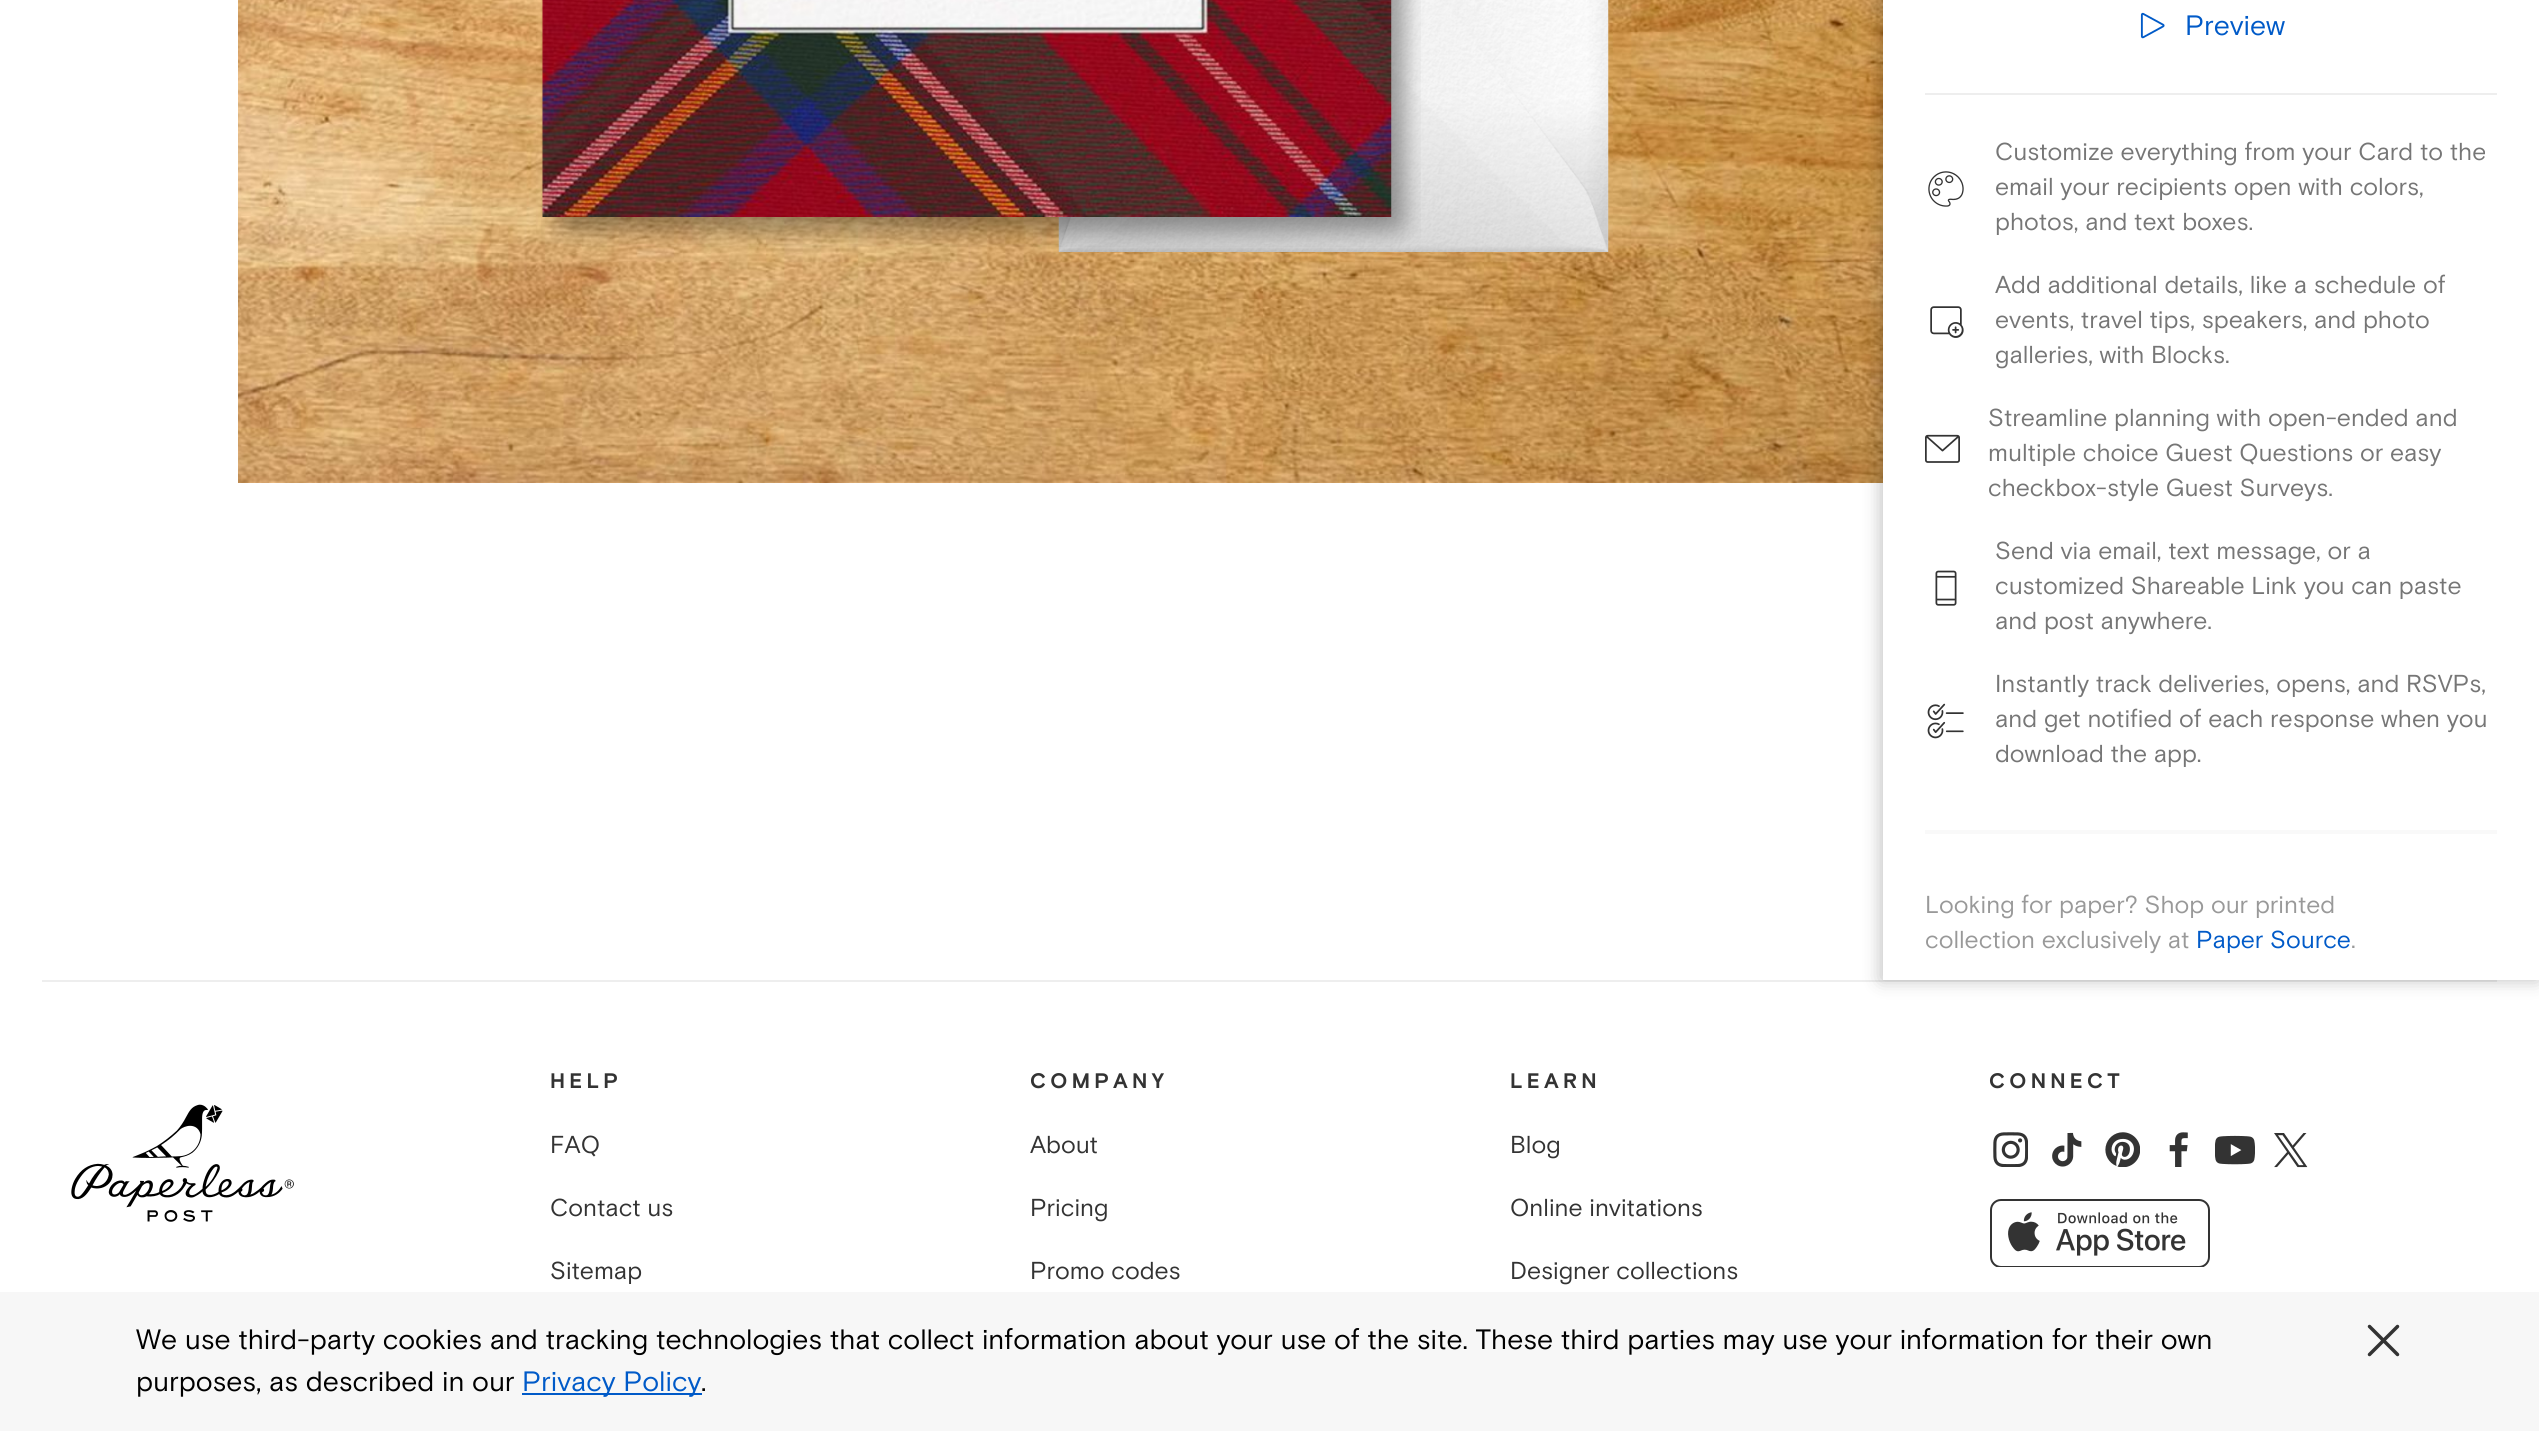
#include <cairo.h>
#include <math.h>
#include <stddef.h>


static void spaced_text(cairo_t *cr, double x, double y, const char *s, double letter, double word) {
    cairo_move_to(cr, x, y);
    while (*s) {
        char ch[5] = {0};
        int n = 0;
        do ch[n++] = *s++; while ((*s & 0xC0) == 0x80);
        cairo_show_text(cr, ch);
        cairo_rel_move_to(cr, letter + word * (*ch == ' '), 0);
    }
}

static void round_rect(cairo_t *cr, double x, double y, double w, double h, double r) {
    cairo_new_sub_path(cr);
    cairo_arc(cr, x + w - r, y + h - r, r, 0, M_PI / 2);
    cairo_arc(cr, x + r, y + h - r, r, M_PI / 2, M_PI);
    cairo_arc(cr, x + r, y + r, r, M_PI, 1.5 * M_PI);
    cairo_arc(cr, x + w - r, y + r, r, 1.5 * M_PI, 2 * M_PI);
    cairo_close_path(cr);
}

static void shadow(cairo_t *cr, double x, double y, double w, double h, double r, double blur, double alpha) {
    cairo_push_group_with_content(cr, CAIRO_CONTENT_ALPHA);
    cairo_set_operator(cr, CAIRO_OPERATOR_SOURCE);
    for (int i = 15; i >= -15 && fmin(w, h) + blur * i / 3 > 0; i -= 2) {
        double e = blur * i / 6;
        cairo_set_source_rgba(cr, 0, 0, 0, alpha * erfc((i - 1) / 8.5) / 2);
        round_rect(cr, x - e, y - e, w + 2 * e, h + 2 * e, fmax(0, fmin(r + e + blur * .6, fmin(w, h) / 2 + e)));
        cairo_fill(cr);
    }
    cairo_pattern_t *soft = cairo_pop_group(cr);
    cairo_mask(cr, soft);
    cairo_pattern_destroy(soft);
}

static void picture(cairo_t *cr, const char *path, double x, double y, double w, double h) {
    cairo_surface_t *image = cairo_image_surface_create_from_png(path);
    cairo_save(cr);
    cairo_set_source_surface(cr, image, x, y);
    cairo_rectangle(cr, x, y, w, h);
    cairo_fill(cr);
    cairo_restore(cr);
    cairo_surface_destroy(image);
}

int main(void) {
    cairo_surface_t *surface = cairo_image_surface_create(CAIRO_FORMAT_RGB24, 2539, 1431);
    cairo_t *cr = cairo_create(surface);
    cairo_font_options_t *options = cairo_font_options_create();
    cairo_font_options_set_hint_metrics(options, CAIRO_HINT_METRICS_OFF);
    cairo_font_options_set_hint_style(options, CAIRO_HINT_STYLE_NONE);
    cairo_set_font_options(cr, options);
    cairo_set_miter_limit(cr, 4);
    cairo_set_source_rgb(cr, 1, 1, 1);
    cairo_paint(cr);
    picture(cr, "img1.png", 238, 0, 1645, 483);
    picture(cr, "img3.png", 1058, 0, 551, 252);
    picture(cr, "img2.png", 541, 0, 880, 247);
    cairo_set_source_rgb(cr, 0.933, 0.933, 0.933);
    cairo_rectangle(cr, 42, 980, 2455, 2);
    cairo_fill(cr);
    cairo_save(cr);
    cairo_set_fill_rule(cr, CAIRO_FILL_RULE_EVEN_ODD);
    cairo_new_path(cr);
    cairo_move_to(cr, 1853, 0);
    cairo_line_to(cr, 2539, 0);
    cairo_line_to(cr, 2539, 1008);
    cairo_line_to(cr, 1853, 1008);
    cairo_close_path(cr);
    cairo_move_to(cr, 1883, -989);
    cairo_line_to(cr, 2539, -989);
    cairo_line_to(cr, 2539, 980);
    cairo_line_to(cr, 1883, 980);
    cairo_close_path(cr);
    cairo_clip(cr);
    cairo_set_source_rgb(cr, 0, 0, 0);
    shadow(cr, 1881, -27, 657, 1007, 0, 9, 0.25);
    cairo_restore(cr);
    picture(cr, "img4.png", 2140, 12, 25, 27);
    cairo_select_font_face(cr, "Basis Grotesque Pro", CAIRO_FONT_SLANT_NORMAL, CAIRO_FONT_WEIGHT_NORMAL);
    cairo_set_font_size(cr, 28);
    cairo_set_source_rgb(cr, 0, 0.353, 0.784);
    cairo_move_to(cr, 2185, 35);
    cairo_show_text(cr, "Preview");
    cairo_set_source_rgb(cr, 0.933, 0.933, 0.933);
    cairo_rectangle(cr, 1925, 93, 572, 2);
    cairo_fill(cr);
    picture(cr, "img5.png", 1928, 171, 36, 36);
    cairo_set_font_size(cr, 24.5);
    cairo_set_source_rgb(cr, 0.463, 0.463, 0.463);
    cairo_move_to(cr, 1995, 160);
    cairo_show_text(cr, "Customize everything from your Card to the");
    cairo_move_to(cr, 1995, 195);
    cairo_show_text(cr, "email your recipients open with colors,");
    cairo_move_to(cr, 1995, 230);
    cairo_show_text(cr, "photos, and text boxes.");
    picture(cr, "img6.png", 1930, 306, 34, 32);
    cairo_move_to(cr, 1995, 293);
    cairo_show_text(cr, "Add additional details, like a schedule of");
    cairo_move_to(cr, 1995, 328);
    cairo_show_text(cr, "events, travel tips, speakers, and photo");
    cairo_move_to(cr, 1995, 363);
    cairo_show_text(cr, "galleries, with Blocks.");
    picture(cr, "img7.png", 1925, 434, 35, 29);
    cairo_move_to(cr, 1988, 426);
    cairo_show_text(cr, "Streamline planning with open-ended and");
    cairo_move_to(cr, 1988, 461);
    cairo_show_text(cr, "multiple choice Guest Questions or easy");
    cairo_move_to(cr, 1988, 496);
    cairo_show_text(cr, "checkbox-style Guest Surveys.");
    picture(cr, "img8.png", 1935, 570, 22, 36);
    cairo_move_to(cr, 1995, 559);
    cairo_show_text(cr, "Send via email, text message, or a");
    cairo_move_to(cr, 1995, 594);
    cairo_show_text(cr, "customized Shareable Link you can paste");
    cairo_move_to(cr, 1995, 629);
    cairo_show_text(cr, "and post anywhere.");
    picture(cr, "img9.png", 1927, 703, 37, 36);
    cairo_move_to(cr, 1995, 692);
    cairo_show_text(cr, "Instantly track deliveries, opens, and RSVPs,");
    cairo_move_to(cr, 1995, 727);
    cairo_show_text(cr, "and get notified of each response when you");
    cairo_move_to(cr, 1995, 762);
    cairo_show_text(cr, "download the app.");
    cairo_set_source_rgb(cr, 0.976, 0.976, 0.976);
    cairo_rectangle(cr, 1925, 830, 572, 4);
    cairo_fill(cr);
    cairo_set_source_rgb(cr, 0.6, 0.6, 0.6);
    cairo_move_to(cr, 1925, 913);
    cairo_show_text(cr, "Looking for paper? Shop our printed");
    cairo_move_to(cr, 1925, 948);
    cairo_show_text(cr, "collection exclusively at");
    cairo_set_source_rgb(cr, 0, 0.353, 0.784);
    cairo_move_to(cr, 2196, 948);
    cairo_show_text(cr, "Paper Source");
    cairo_set_source_rgb(cr, 0.6, 0.6, 0.6);
    cairo_move_to(cr, 2351, 948);
    cairo_show_text(cr, ".");
    cairo_select_font_face(cr, "Basis Grotesque Pro", CAIRO_FONT_SLANT_NORMAL, CAIRO_FONT_WEIGHT_BOLD);
    cairo_set_font_size(cr, 21);
    cairo_set_source_rgb(cr, 0.2, 0.2, 0.2);
    spaced_text(cr, 550, 1088, "HELP", 4.25, 0);
    cairo_select_font_face(cr, "Basis Grotesque Pro", CAIRO_FONT_SLANT_NORMAL, CAIRO_FONT_WEIGHT_NORMAL);
    cairo_set_font_size(cr, 24.5);
    cairo_move_to(cr, 550, 1153);
    cairo_show_text(cr, "FAQ");
    cairo_move_to(cr, 550, 1216);
    cairo_show_text(cr, "Contact us");
    cairo_move_to(cr, 550, 1279);
    cairo_show_text(cr, "Sitemap");
    cairo_select_font_face(cr, "Basis Grotesque Pro", CAIRO_FONT_SLANT_NORMAL, CAIRO_FONT_WEIGHT_BOLD);
    cairo_set_font_size(cr, 21);
    spaced_text(cr, 1030, 1088, "COMPANY", 4.25, 0);
    cairo_select_font_face(cr, "Basis Grotesque Pro", CAIRO_FONT_SLANT_NORMAL, CAIRO_FONT_WEIGHT_NORMAL);
    cairo_set_font_size(cr, 24.5);
    cairo_move_to(cr, 1030, 1153);
    cairo_show_text(cr, "About");
    cairo_move_to(cr, 1030, 1216);
    cairo_show_text(cr, "Pricing");
    cairo_move_to(cr, 1030, 1279);
    cairo_show_text(cr, "Promo codes");
    cairo_select_font_face(cr, "Basis Grotesque Pro", CAIRO_FONT_SLANT_NORMAL, CAIRO_FONT_WEIGHT_BOLD);
    cairo_set_font_size(cr, 21);
    spaced_text(cr, 1510, 1088, "LEARN", 4.25, 0);
    cairo_select_font_face(cr, "Basis Grotesque Pro", CAIRO_FONT_SLANT_NORMAL, CAIRO_FONT_WEIGHT_NORMAL);
    cairo_set_font_size(cr, 24.5);
    cairo_move_to(cr, 1510, 1153);
    cairo_show_text(cr, "Blog");
    cairo_move_to(cr, 1510, 1216);
    cairo_show_text(cr, "Online invitations");
    cairo_move_to(cr, 1510, 1279);
    cairo_show_text(cr, "Designer collections");
    cairo_select_font_face(cr, "Basis Grotesque Pro", CAIRO_FONT_SLANT_NORMAL, CAIRO_FONT_WEIGHT_BOLD);
    cairo_set_font_size(cr, 21);
    spaced_text(cr, 1989, 1088, "CONNECT", 4.25, 0);
    picture(cr, "img10.png", 1993, 1132, 35, 35);
    picture(cr, "img11.png", 2052, 1132, 30, 35);
    picture(cr, "img12.png", 2105, 1132, 35, 35);
    picture(cr, "img13.png", 2169, 1132, 19, 35);
    picture(cr, "img14.png", 2215, 1135, 40, 30);
    picture(cr, "img15.png", 2274, 1133, 34, 35);
    picture(cr, "img16.png", 1990, 1199, 220, 68);
    picture(cr, "img17.png", 71, 1104, 223, 118);
    cairo_set_source_rgb(cr, 0.965, 0.965, 0.965);
    cairo_rectangle(cr, 0, 1292, 2539, 139);
    cairo_fill(cr);
    cairo_select_font_face(cr, "Basis Grotesque Pro", CAIRO_FONT_SLANT_NORMAL, CAIRO_FONT_WEIGHT_NORMAL);
    cairo_set_font_size(cr, 28);
    cairo_set_source_rgb(cr, 0, 0, 0);
    cairo_move_to(cr, 136, 1349);
    cairo_show_text(cr, "We use third-party cookies and tracking technologies that collect information about your use of the site. These third parties may use your information for their own");
    cairo_move_to(cr, 136, 1391);
    cairo_show_text(cr, "purposes, as described in our");
    cairo_set_source_rgb(cr, 0, 0.353, 0.784);
    cairo_rectangle(cr, 522, 1393, 180, 2);
    cairo_fill(cr);
    cairo_move_to(cr, 522, 1391);
    cairo_show_text(cr, "Privacy Policy");
    cairo_set_source_rgb(cr, 0, 0, 0);
    cairo_move_to(cr, 701, 1391);
    cairo_show_text(cr, ".");
    cairo_new_path(cr);
    cairo_move_to(cr, 2369.5, 1354.5);
    cairo_line_to(cr, 2397.5, 1326.5);
    cairo_move_to(cr, 2369.5, 1326.5);
    cairo_line_to(cr, 2397.5, 1354.5);
    cairo_set_source_rgb(cr, 0.2, 0.2, 0.2);
    cairo_set_line_width(cr, 3.5);
    cairo_set_line_cap(cr, CAIRO_LINE_CAP_ROUND);
    cairo_set_line_join(cr, CAIRO_LINE_JOIN_ROUND);
    cairo_stroke(cr);
    cairo_surface_write_to_png(surface, "page.png");
    cairo_font_options_destroy(options);
    cairo_destroy(cr);
    cairo_surface_destroy(surface);
    return 0;
}
